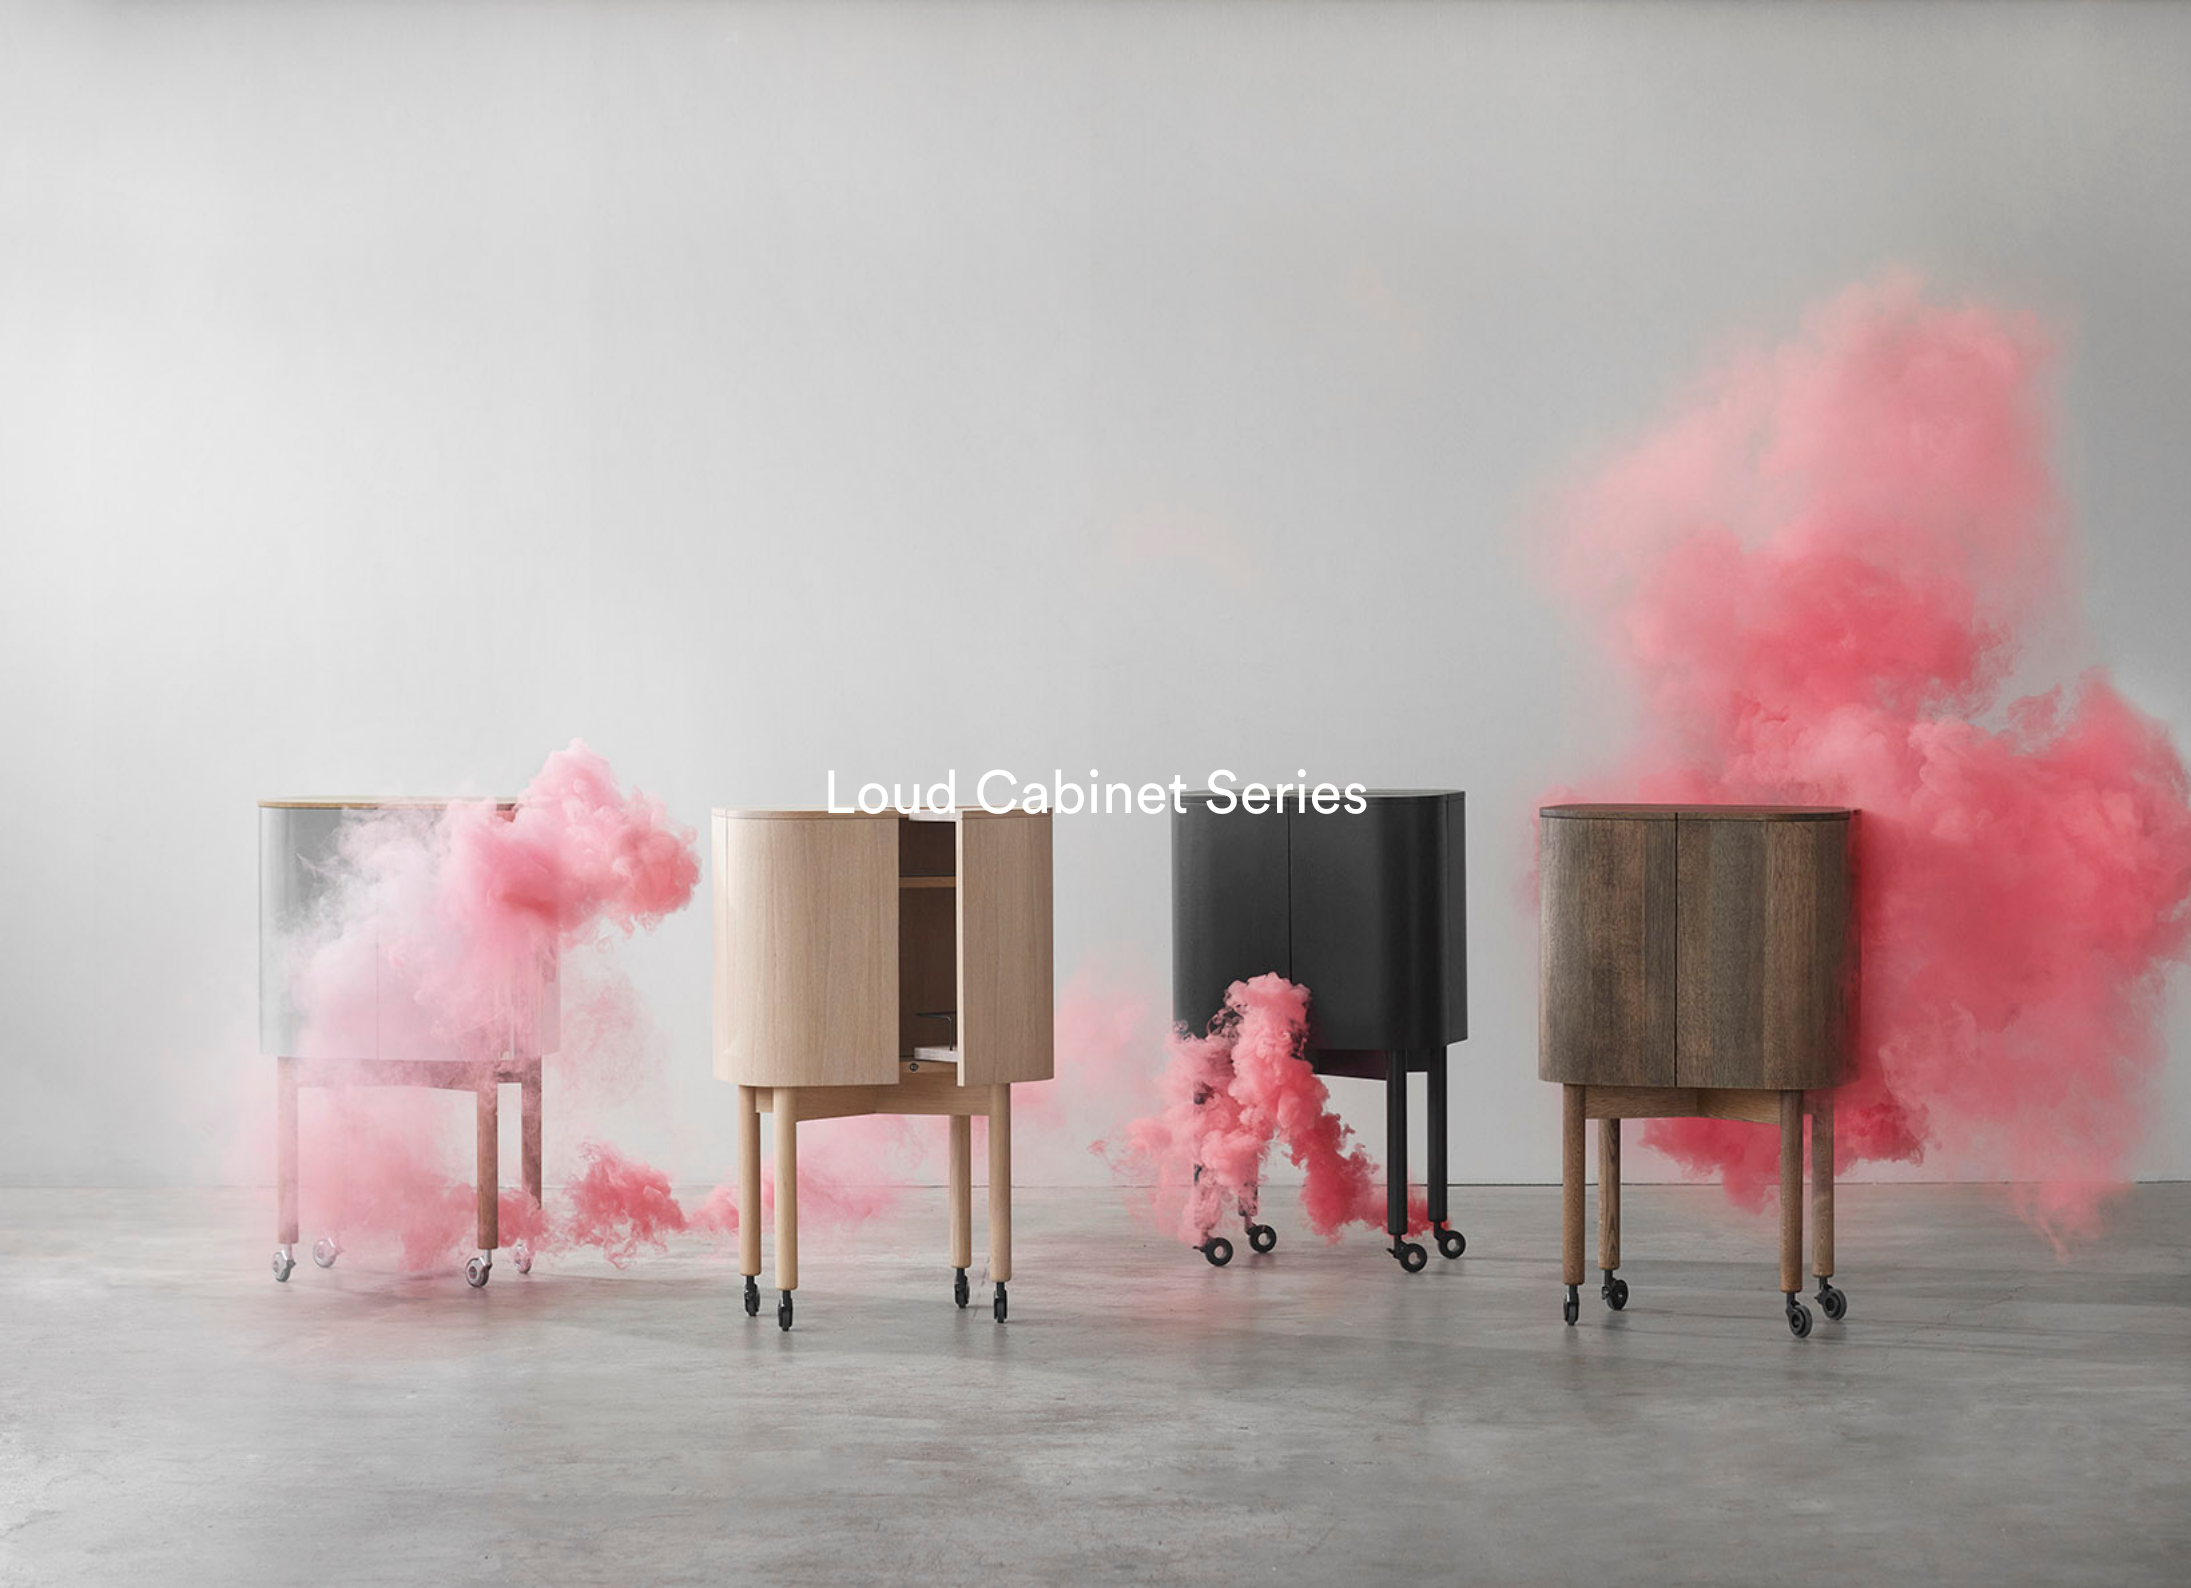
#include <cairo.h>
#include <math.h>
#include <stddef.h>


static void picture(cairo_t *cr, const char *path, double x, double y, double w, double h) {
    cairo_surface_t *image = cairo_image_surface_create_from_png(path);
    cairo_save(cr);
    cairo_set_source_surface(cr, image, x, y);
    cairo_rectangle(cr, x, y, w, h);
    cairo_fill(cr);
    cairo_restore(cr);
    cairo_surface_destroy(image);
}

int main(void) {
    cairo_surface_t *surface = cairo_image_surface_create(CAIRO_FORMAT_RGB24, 2191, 1588);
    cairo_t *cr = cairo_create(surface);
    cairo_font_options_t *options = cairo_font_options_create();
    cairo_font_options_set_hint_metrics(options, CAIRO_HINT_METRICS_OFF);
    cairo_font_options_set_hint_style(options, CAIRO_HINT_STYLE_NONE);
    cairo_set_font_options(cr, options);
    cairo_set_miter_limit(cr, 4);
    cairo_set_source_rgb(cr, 1, 1, 1);
    cairo_paint(cr);
    picture(cr, "img1.png", 0, 0, 2191, 1588);
    cairo_select_font_face(cr, "Circular", CAIRO_FONT_SLANT_NORMAL, CAIRO_FONT_WEIGHT_NORMAL);
    cairo_set_font_size(cr, 60);
    cairo_set_source_rgb(cr, 1, 1, 1);
    cairo_move_to(cr, 823, 813);
    cairo_show_text(cr, "Loud Cabinet Series");
    cairo_surface_write_to_png(surface, "page.png");
    cairo_font_options_destroy(options);
    cairo_destroy(cr);
    cairo_surface_destroy(surface);
    return 0;
}
